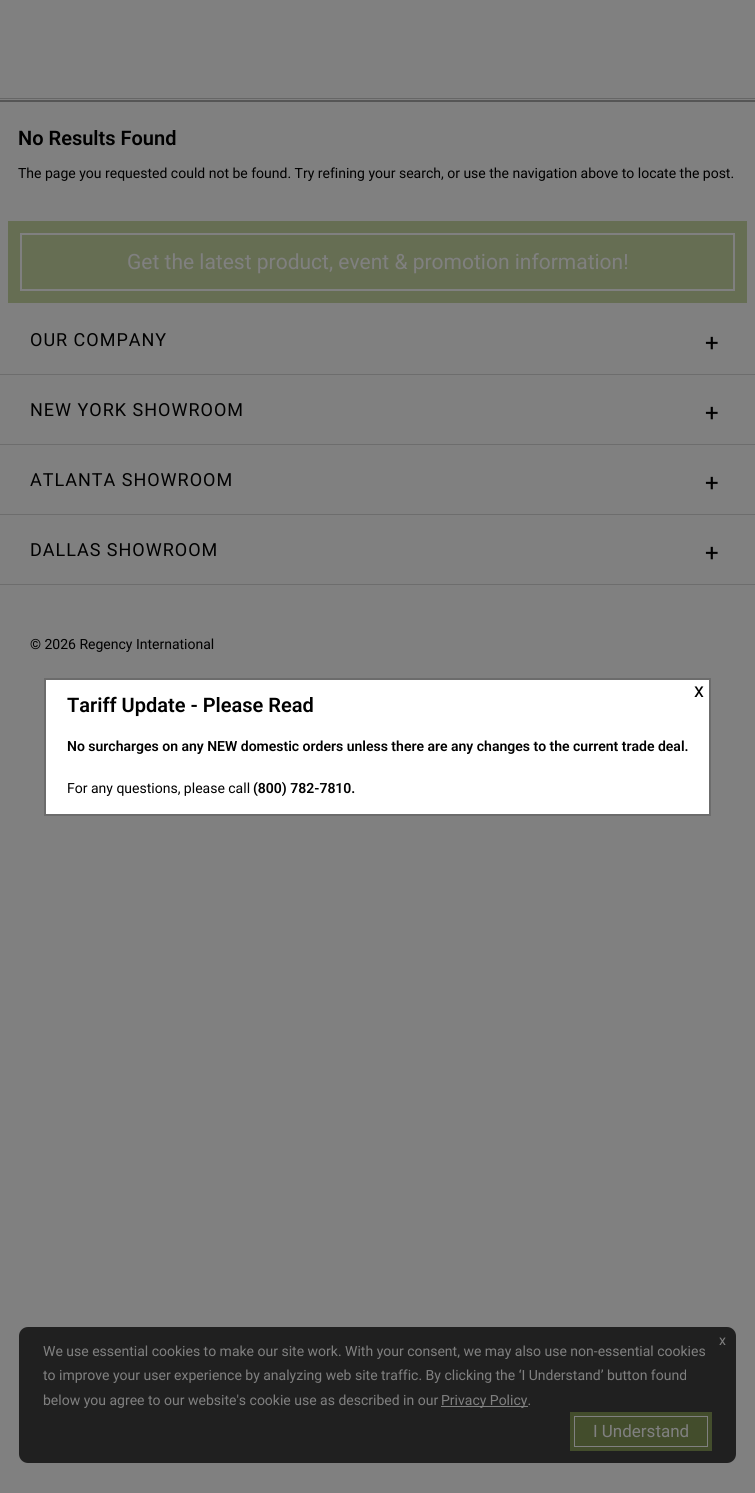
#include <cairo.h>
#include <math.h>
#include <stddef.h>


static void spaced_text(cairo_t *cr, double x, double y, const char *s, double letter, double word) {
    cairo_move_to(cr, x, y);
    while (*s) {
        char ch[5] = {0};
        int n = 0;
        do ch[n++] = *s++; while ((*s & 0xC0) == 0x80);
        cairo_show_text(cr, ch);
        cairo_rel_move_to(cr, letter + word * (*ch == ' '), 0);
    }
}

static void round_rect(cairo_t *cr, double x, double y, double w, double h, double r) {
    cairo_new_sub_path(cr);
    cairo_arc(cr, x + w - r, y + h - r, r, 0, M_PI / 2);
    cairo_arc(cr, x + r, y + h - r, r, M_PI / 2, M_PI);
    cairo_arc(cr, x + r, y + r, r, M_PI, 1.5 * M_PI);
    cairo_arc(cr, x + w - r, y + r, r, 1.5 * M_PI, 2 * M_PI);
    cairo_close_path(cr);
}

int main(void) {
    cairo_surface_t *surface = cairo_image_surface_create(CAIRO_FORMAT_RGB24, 755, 1493);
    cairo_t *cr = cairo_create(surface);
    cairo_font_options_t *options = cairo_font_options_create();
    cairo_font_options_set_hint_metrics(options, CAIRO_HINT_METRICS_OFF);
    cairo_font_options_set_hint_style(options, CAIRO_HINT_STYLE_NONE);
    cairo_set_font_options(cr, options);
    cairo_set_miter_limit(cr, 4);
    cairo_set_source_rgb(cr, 0.502, 0.502, 0.502);
    cairo_paint(cr);
    cairo_set_source_rgb(cr, 0.4, 0.4, 0.4);
    cairo_rectangle(cr, 0, 98, 755, 1);
    cairo_fill(cr);
    cairo_set_source_rgb(cr, 0.333, 0.333, 0.333);
    cairo_rectangle(cr, 0, 100, 755, 2);
    cairo_fill(cr);
    cairo_select_font_face(cr, "Roboto SemiBold", CAIRO_FONT_SLANT_NORMAL, CAIRO_FONT_WEIGHT_NORMAL);
    cairo_set_font_size(cr, 20);
    cairo_set_source_rgb(cr, 0, 0, 0);
    cairo_move_to(cr, 18, 145);
    cairo_show_text(cr, "No Results Found");
    cairo_select_font_face(cr, "Roboto", CAIRO_FONT_SLANT_NORMAL, CAIRO_FONT_WEIGHT_NORMAL);
    cairo_set_font_size(cr, 14);
    cairo_move_to(cr, 18, 178);
    cairo_show_text(cr, "The page you requested could not be found. Try refining your search, or use the navigation above to locate the post.");
    cairo_set_source_rgb(cr, 0.4, 0.431, 0.325);
    cairo_rectangle(cr, 8, 221, 739, 82);
    cairo_fill(cr);
    cairo_rectangle(cr, 21, 234, 713, 56);
    cairo_set_source_rgb(cr, 0.502, 0.502, 0.502);
    cairo_stroke(cr);
    cairo_set_font_size(cr, 21);
    cairo_move_to(cr, 127, 269);
    cairo_show_text(cr, "Get the latest product, event & promotion information!");
    cairo_set_source_rgb(cr, 0.427, 0.427, 0.427);
    cairo_rectangle(cr, 0, 374, 755, 1);
    cairo_fill(cr);
    cairo_set_font_size(cr, 18);
    cairo_set_source_rgb(cr, 0, 0, 0);
    spaced_text(cr, 30, 346, "OUR COMPANY", 1, 0);
    cairo_set_font_size(cr, 24);
    spaced_text(cr, 705, 351, "+", 1, 0);
    cairo_set_source_rgb(cr, 0.427, 0.427, 0.427);
    cairo_rectangle(cr, 0, 444, 755, 1);
    cairo_fill(cr);
    cairo_set_font_size(cr, 18);
    cairo_set_source_rgb(cr, 0, 0, 0);
    spaced_text(cr, 30, 416, "NEW YORK SHOWROOM", 1, 0);
    cairo_set_font_size(cr, 24);
    spaced_text(cr, 705, 421, "+", 1, 0);
    cairo_set_source_rgb(cr, 0.427, 0.427, 0.427);
    cairo_rectangle(cr, 0, 514, 755, 1);
    cairo_fill(cr);
    cairo_set_font_size(cr, 18);
    cairo_set_source_rgb(cr, 0, 0, 0);
    spaced_text(cr, 30, 486, "ATLANTA SHOWROOM", 1, 0);
    cairo_set_font_size(cr, 24);
    spaced_text(cr, 705, 491, "+", 1, 0);
    cairo_set_source_rgb(cr, 0.427, 0.427, 0.427);
    cairo_rectangle(cr, 0, 584, 755, 1);
    cairo_fill(cr);
    cairo_set_font_size(cr, 18);
    cairo_set_source_rgb(cr, 0, 0, 0);
    spaced_text(cr, 30, 556, "DALLAS SHOWROOM", 1, 0);
    cairo_set_font_size(cr, 24);
    spaced_text(cr, 705, 561, "+", 1, 0);
    cairo_set_font_size(cr, 14);
    cairo_move_to(cr, 30, 649);
    cairo_show_text(cr, "© 2026 Regency International");
    cairo_set_source_rgb(cr, 1, 1, 1);
    cairo_rectangle(cr, 45, 679, 665, 136);
    cairo_fill_preserve(cr);
    cairo_set_source_rgb(cr, 0.424, 0.424, 0.424);
    cairo_stroke(cr);
    cairo_set_font_size(cr, 20);
    cairo_set_source_rgb(cr, 0, 0, 0);
    cairo_move_to(cr, 694, 697);
    cairo_show_text(cr, "x");
    cairo_select_font_face(cr, "Roboto SemiBold", CAIRO_FONT_SLANT_NORMAL, CAIRO_FONT_WEIGHT_NORMAL);
    cairo_move_to(cr, 67, 712);
    cairo_show_text(cr, "Tariff Update - Please Read");
    cairo_set_font_size(cr, 14);
    cairo_move_to(cr, 67, 751);
    cairo_show_text(cr, "No surcharges on any NEW domestic orders unless there are any changes to the current trade deal.");
    cairo_select_font_face(cr, "Roboto", CAIRO_FONT_SLANT_NORMAL, CAIRO_FONT_WEIGHT_NORMAL);
    cairo_move_to(cr, 67, 793);
    cairo_show_text(cr, "For any questions, please call");
    cairo_select_font_face(cr, "Roboto SemiBold", CAIRO_FONT_SLANT_NORMAL, CAIRO_FONT_WEIGHT_NORMAL);
    cairo_move_to(cr, 253, 793);
    cairo_show_text(cr, "(800) 782-7810.");
    cairo_set_source_rgb(cr, 0.125, 0.125, 0.125);
    round_rect(cr, 19, 1327, 717, 136, 9);
    cairo_fill(cr);
    cairo_select_font_face(cr, "Roboto", CAIRO_FONT_SLANT_NORMAL, CAIRO_FONT_WEIGHT_NORMAL);
    cairo_set_source_rgb(cr, 0.502, 0.502, 0.502);
    cairo_move_to(cr, 719, 1345);
    cairo_show_text(cr, "x");
    cairo_move_to(cr, 43, 1356);
    cairo_show_text(cr, "We use essential cookies to make our site work. With your consent, we may also use non-essential cookies");
    cairo_move_to(cr, 43, 1380);
    cairo_show_text(cr, "to improve your user experience by analyzing web site traffic. By clicking the ‘I Understand’ button found");
    cairo_move_to(cr, 43, 1405);
    cairo_show_text(cr, "below you agree to our website's cookie use as described in our");
    cairo_rectangle(cr, 441, 1406, 87, 1);
    cairo_fill(cr);
    cairo_move_to(cr, 441, 1405);
    cairo_show_text(cr, "Privacy Policy.");
    cairo_set_source_rgb(cr, 0.263, 0.302, 0.173);
    cairo_rectangle(cr, 570, 1412, 142, 39);
    cairo_fill(cr);
    cairo_rectangle(cr, 574.5, 1416.5, 133, 30);
    cairo_set_source_rgb(cr, 0.502, 0.502, 0.502);
    cairo_set_line_width(cr, 1);
    cairo_stroke(cr);
    cairo_set_font_size(cr, 17);
    cairo_move_to(cr, 593, 1437);
    cairo_show_text(cr, "I Understand");
    cairo_surface_write_to_png(surface, "page.png");
    cairo_font_options_destroy(options);
    cairo_destroy(cr);
    cairo_surface_destroy(surface);
    return 0;
}
